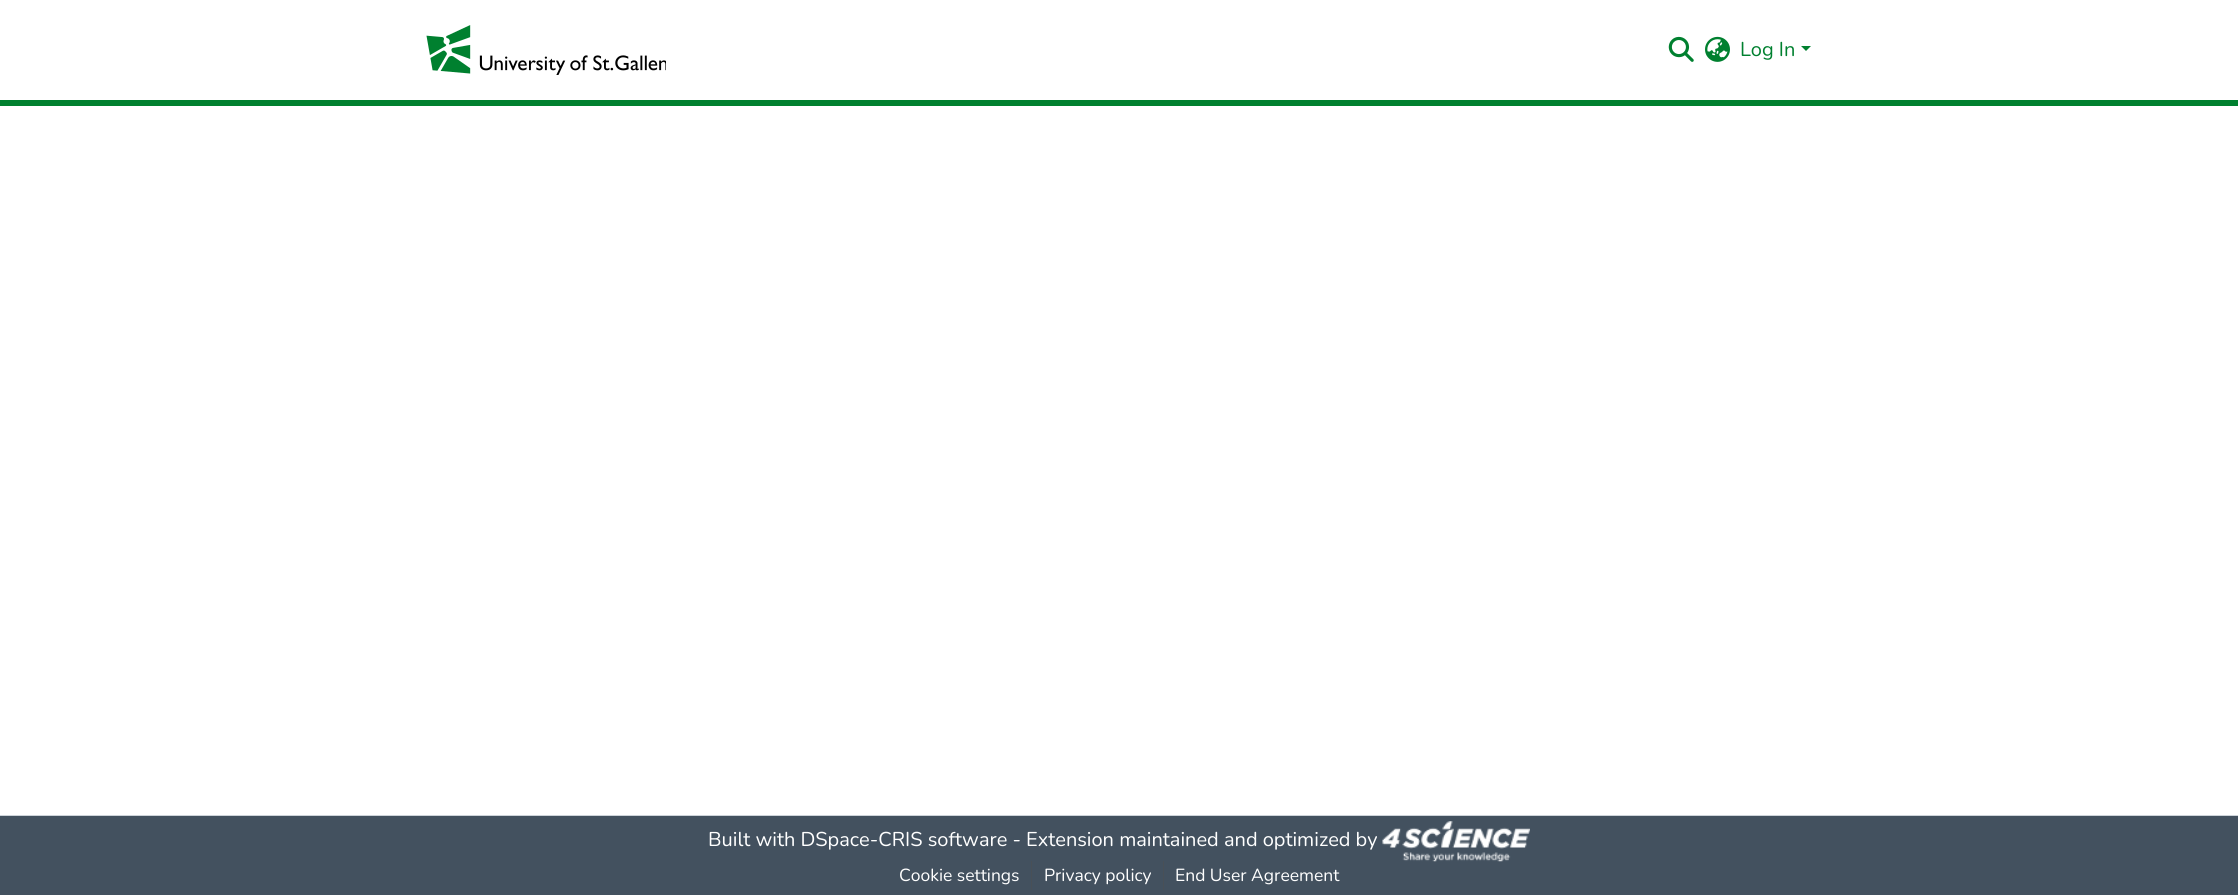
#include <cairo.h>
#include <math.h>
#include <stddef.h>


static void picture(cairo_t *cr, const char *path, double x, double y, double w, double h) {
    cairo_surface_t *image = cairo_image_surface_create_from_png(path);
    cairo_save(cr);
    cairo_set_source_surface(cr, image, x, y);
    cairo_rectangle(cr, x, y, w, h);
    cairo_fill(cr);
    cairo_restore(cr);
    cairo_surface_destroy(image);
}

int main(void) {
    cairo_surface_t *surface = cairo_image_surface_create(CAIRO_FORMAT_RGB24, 2238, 895);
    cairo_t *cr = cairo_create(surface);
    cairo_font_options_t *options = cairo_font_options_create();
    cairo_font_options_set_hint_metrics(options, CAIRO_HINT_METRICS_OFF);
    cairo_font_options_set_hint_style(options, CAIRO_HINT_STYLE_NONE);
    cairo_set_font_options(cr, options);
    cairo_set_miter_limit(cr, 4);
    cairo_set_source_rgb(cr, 1, 1, 1);
    cairo_paint(cr);
    cairo_set_source_rgb(cr, 0, 0.502, 0.184);
    cairo_rectangle(cr, 0, 100, 2238, 6);
    cairo_fill(cr);
    picture(cr, "img1.png", 426, 25, 240, 50);
    picture(cr, "img2.png", 1668, 36, 26, 26);
    picture(cr, "img3.png", 1705, 36, 25, 26);
    cairo_select_font_face(cr, "Nunito", CAIRO_FONT_SLANT_NORMAL, CAIRO_FONT_WEIGHT_NORMAL);
    cairo_set_font_size(cr, 20);
    cairo_move_to(cr, 1740, 56);
    cairo_show_text(cr, "Log In");
    cairo_new_path(cr);
    cairo_move_to(cr, 1801, 46);
    cairo_line_to(cr, 1811, 46);
    cairo_line_to(cr, 1806, 51);
    cairo_close_path(cr);
    cairo_fill(cr);
    cairo_set_source_rgb(cr, 0.263, 0.318, 0.373);
    cairo_rectangle(cr, 0, 816, 2238, 79);
    cairo_fill(cr);
    cairo_set_source_rgb(cr, 0.808, 0.831, 0.855);
    cairo_rectangle(cr, 0, 815, 2238, 1);
    cairo_fill(cr);
    cairo_set_source_rgb(cr, 1, 1, 1);
    cairo_move_to(cr, 708, 846);
    cairo_show_text(cr, "Built with DSpace-CRIS software - Extension maintained and optimized by");
    picture(cr, "img4.png", 1382, 821, 148, 41);
    cairo_set_font_size(cr, 17.5);
    cairo_move_to(cr, 899, 881);
    cairo_show_text(cr, "Cookie settings");
    cairo_set_source_rgb(cr, 0.286, 0.314, 0.341);
    cairo_rectangle(cr, 1031, 861, 1, 29);
    cairo_fill(cr);
    cairo_set_source_rgb(cr, 1, 1, 1);
    cairo_move_to(cr, 1044, 881);
    cairo_show_text(cr, "Privacy policy");
    cairo_set_source_rgb(cr, 0.286, 0.314, 0.341);
    cairo_rectangle(cr, 1163, 861, 1, 29);
    cairo_fill(cr);
    cairo_set_source_rgb(cr, 1, 1, 1);
    cairo_move_to(cr, 1175, 881);
    cairo_show_text(cr, "End User Agreement");
    cairo_surface_write_to_png(surface, "page.png");
    cairo_font_options_destroy(options);
    cairo_destroy(cr);
    cairo_surface_destroy(surface);
    return 0;
}
